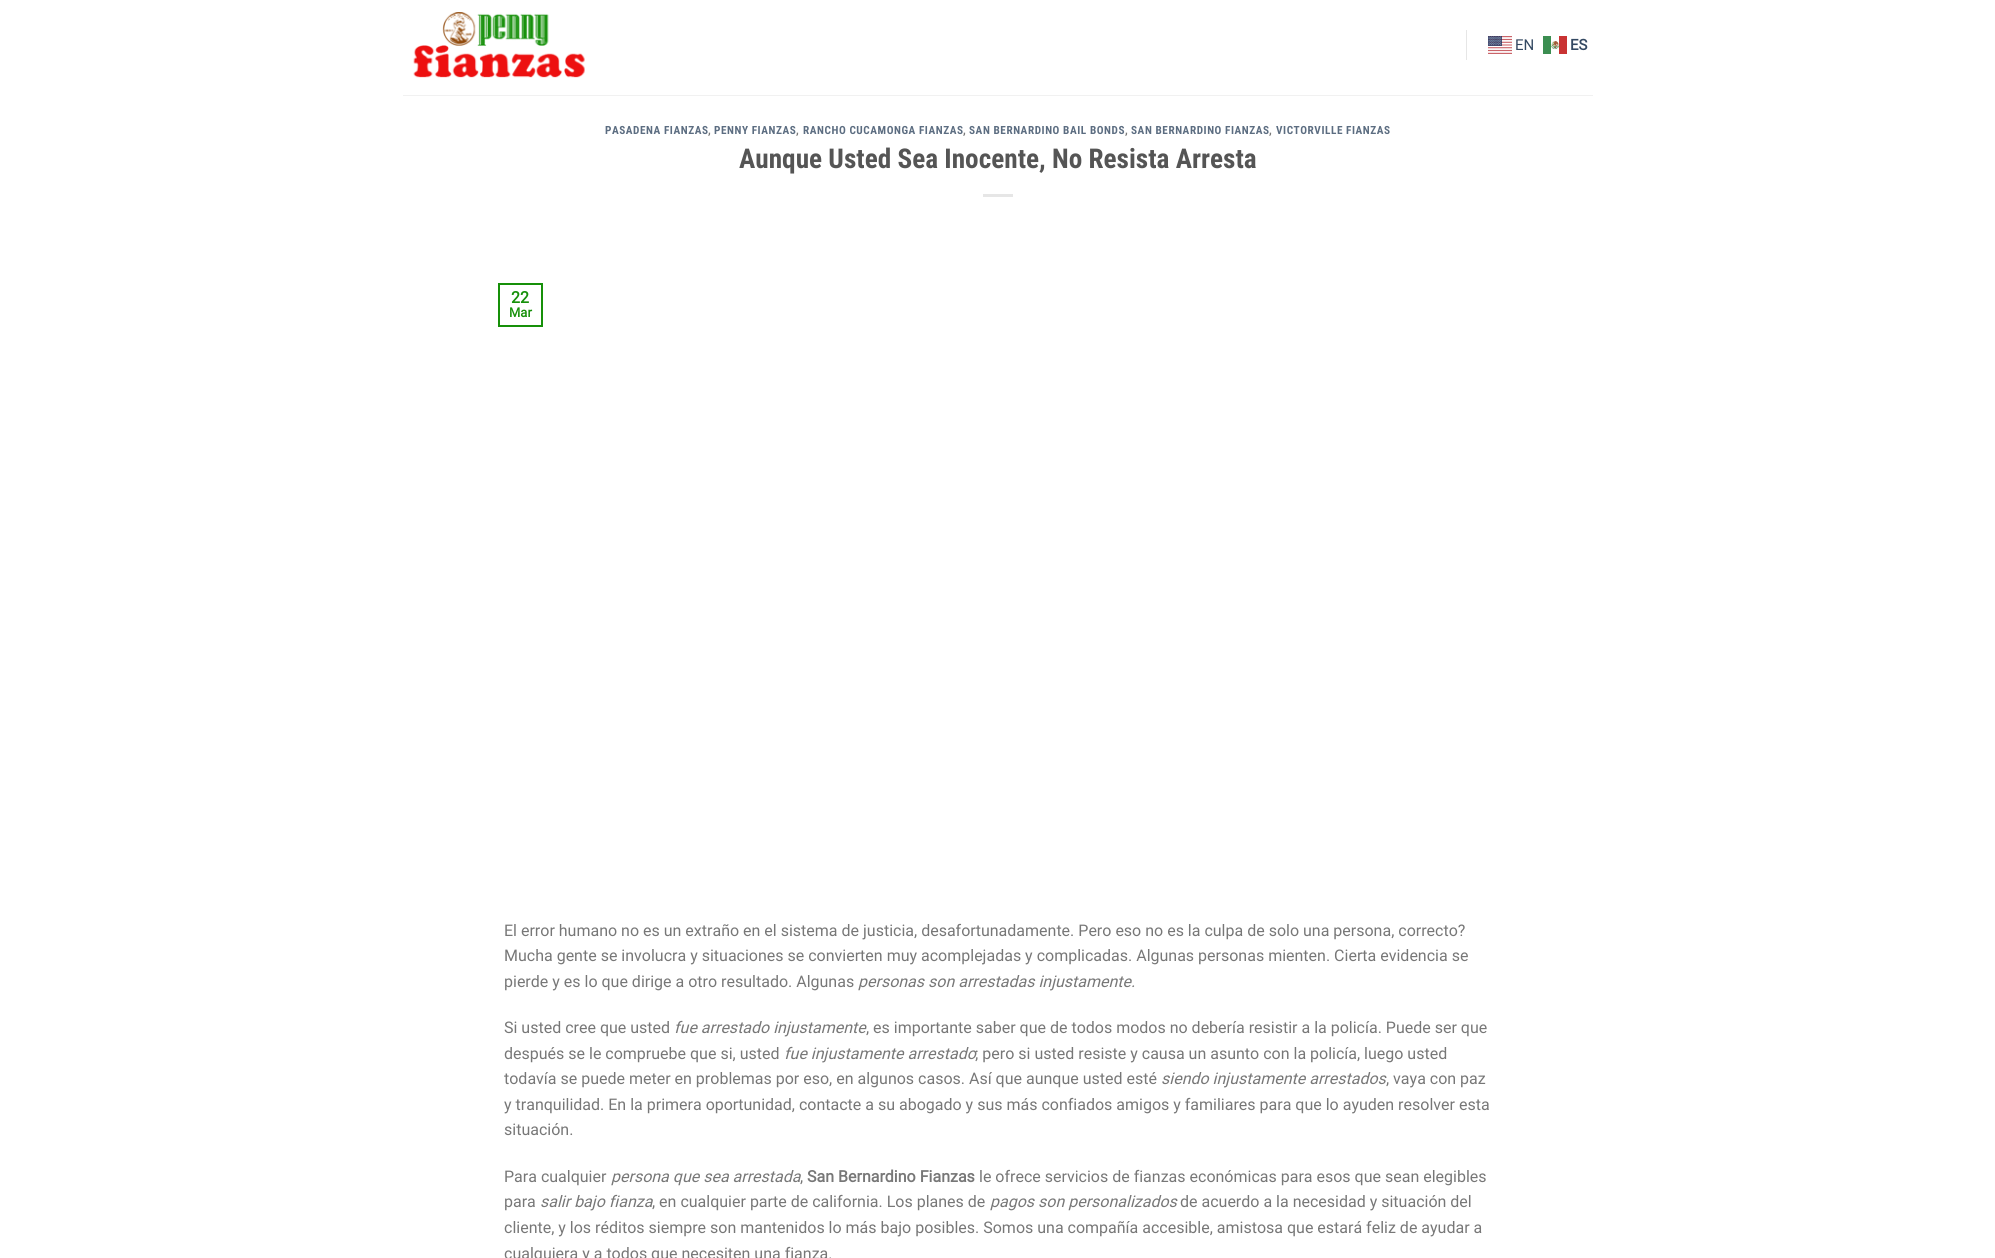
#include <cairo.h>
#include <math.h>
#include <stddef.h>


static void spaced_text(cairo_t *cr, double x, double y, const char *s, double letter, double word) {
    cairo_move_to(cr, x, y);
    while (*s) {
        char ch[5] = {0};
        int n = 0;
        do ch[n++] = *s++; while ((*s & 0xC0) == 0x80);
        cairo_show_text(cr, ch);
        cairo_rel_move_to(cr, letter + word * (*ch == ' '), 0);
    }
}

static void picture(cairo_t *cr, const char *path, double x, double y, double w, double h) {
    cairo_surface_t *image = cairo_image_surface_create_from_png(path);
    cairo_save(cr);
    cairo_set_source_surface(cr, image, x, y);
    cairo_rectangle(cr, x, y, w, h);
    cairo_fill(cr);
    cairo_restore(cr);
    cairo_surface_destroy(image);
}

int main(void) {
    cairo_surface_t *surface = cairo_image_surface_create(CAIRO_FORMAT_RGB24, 1995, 1258);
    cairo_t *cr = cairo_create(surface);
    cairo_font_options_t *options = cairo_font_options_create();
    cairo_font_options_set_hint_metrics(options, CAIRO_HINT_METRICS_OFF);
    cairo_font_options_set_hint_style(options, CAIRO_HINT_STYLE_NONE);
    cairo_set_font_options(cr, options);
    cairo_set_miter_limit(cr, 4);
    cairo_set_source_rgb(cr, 1, 1, 1);
    cairo_paint(cr);
    picture(cr, "img1.png", 413, 12, 172, 66);
    cairo_set_source_rgb(cr, 0.902, 0.902, 0.902);
    cairo_rectangle(cr, 1466, 30, 1, 30);
    cairo_fill(cr);
    picture(cr, "img2.png", 1488, 36, 24, 18);
    cairo_select_font_face(cr, "Roboto", CAIRO_FONT_SLANT_NORMAL, CAIRO_FONT_WEIGHT_NORMAL);
    cairo_set_font_size(cr, 15);
    cairo_set_source_rgb(cr, 0.2, 0.282, 0.384);
    cairo_move_to(cr, 1515, 50);
    cairo_show_text(cr, "EN");
    picture(cr, "img3.png", 1543, 36, 24, 18);
    cairo_select_font_face(cr, "Roboto", CAIRO_FONT_SLANT_NORMAL, CAIRO_FONT_WEIGHT_BOLD);
    cairo_move_to(cr, 1570, 50);
    cairo_show_text(cr, "ES");
    cairo_set_source_rgb(cr, 0.945, 0.945, 0.945);
    cairo_rectangle(cr, 403, 95, 1190, 1);
    cairo_fill(cr);
    cairo_select_font_face(cr, "Roboto Condensed", CAIRO_FONT_SLANT_NORMAL, CAIRO_FONT_WEIGHT_BOLD);
    cairo_set_font_size(cr, 11.25);
    cairo_set_source_rgb(cr, 0.361, 0.427, 0.506);
    spaced_text(cr, 605, 134, "PASADENA FIANZAS", 0.55, 0);
    cairo_set_source_rgb(cr, 0.467, 0.467, 0.467);
    spaced_text(cr, 708, 134, ",", 0.55, 0);
    cairo_set_source_rgb(cr, 0.361, 0.427, 0.506);
    spaced_text(cr, 714, 134, "PENNY FIANZAS", 0.55, 0);
    cairo_set_source_rgb(cr, 0.467, 0.467, 0.467);
    spaced_text(cr, 796, 134, ",", 0.55, 0);
    cairo_set_source_rgb(cr, 0.361, 0.427, 0.506);
    spaced_text(cr, 803, 134, "RANCHO CUCAMONGA FIANZAS", 0.55, 0);
    cairo_set_source_rgb(cr, 0.467, 0.467, 0.467);
    spaced_text(cr, 963, 134, ",", 0.55, 0);
    cairo_set_source_rgb(cr, 0.361, 0.427, 0.506);
    spaced_text(cr, 969, 134, "SAN BERNARDINO BAIL BONDS", 0.55, 0);
    cairo_set_source_rgb(cr, 0.467, 0.467, 0.467);
    spaced_text(cr, 1125, 134, ",", 0.55, 0);
    cairo_set_source_rgb(cr, 0.361, 0.427, 0.506);
    spaced_text(cr, 1131, 134, "SAN BERNARDINO FIANZAS", 0.55, 0);
    cairo_set_source_rgb(cr, 0.467, 0.467, 0.467);
    spaced_text(cr, 1269, 134, ",", 0.55, 0);
    cairo_set_source_rgb(cr, 0.361, 0.427, 0.506);
    spaced_text(cr, 1276, 134, "VICTORVILLE FIANZAS", 0.55, 0);
    cairo_set_font_size(cr, 27.25);
    cairo_set_source_rgb(cr, 0.333, 0.333, 0.333);
    cairo_move_to(cr, 739, 168);
    cairo_show_text(cr, "Aunque Usted Sea Inocente, No Resista Arresta");
    cairo_set_source_rgb(cr, 0.902, 0.902, 0.902);
    cairo_rectangle(cr, 983, 194, 30, 3);
    cairo_fill(cr);
    cairo_rectangle(cr, 499, 284, 43, 42);
    cairo_set_source_rgb(cr, 0.086, 0.565, 0.039);
    cairo_stroke(cr);
    cairo_select_font_face(cr, "Roboto", CAIRO_FONT_SLANT_NORMAL, CAIRO_FONT_WEIGHT_BOLD);
    cairo_set_font_size(cr, 16);
    cairo_move_to(cr, 511, 303);
    cairo_show_text(cr, "22");
    cairo_set_font_size(cr, 13);
    cairo_move_to(cr, 509, 317);
    cairo_show_text(cr, "Mar");
    cairo_select_font_face(cr, "Roboto", CAIRO_FONT_SLANT_NORMAL, CAIRO_FONT_WEIGHT_NORMAL);
    cairo_set_font_size(cr, 16);
    cairo_set_source_rgb(cr, 0.467, 0.467, 0.467);
    cairo_move_to(cr, 504, 936);
    cairo_show_text(cr, "El error humano no es un extraño en el sistema de justicia, desafortunadamente. Pero eso no es la culpa de solo una persona, correcto?");
    cairo_move_to(cr, 504, 961);
    cairo_show_text(cr, "Mucha gente se involucra y situaciones se convierten muy acomplejadas y complicadas. Algunas personas mienten. Cierta evidencia se");
    cairo_move_to(cr, 504, 987);
    cairo_show_text(cr, "pierde y es lo que dirige a otro resultado. Algunas");
    cairo_select_font_face(cr, "Roboto", CAIRO_FONT_SLANT_ITALIC, CAIRO_FONT_WEIGHT_NORMAL);
    cairo_move_to(cr, 858, 987);
    cairo_show_text(cr, "personas son arrestadas injustamente.");
    cairo_select_font_face(cr, "Roboto", CAIRO_FONT_SLANT_NORMAL, CAIRO_FONT_WEIGHT_NORMAL);
    cairo_move_to(cr, 504, 1033);
    cairo_show_text(cr, "Si usted cree que usted");
    cairo_select_font_face(cr, "Roboto", CAIRO_FONT_SLANT_ITALIC, CAIRO_FONT_WEIGHT_NORMAL);
    cairo_move_to(cr, 674, 1033);
    cairo_show_text(cr, "fue arrestado injustamente");
    cairo_select_font_face(cr, "Roboto", CAIRO_FONT_SLANT_NORMAL, CAIRO_FONT_WEIGHT_NORMAL);
    cairo_move_to(cr, 866, 1033);
    cairo_show_text(cr, ", es importante saber que de todos modos no debería resistir a la policía. Puede ser que");
    cairo_move_to(cr, 504, 1059);
    cairo_show_text(cr, "después se le compruebe que si, usted");
    cairo_select_font_face(cr, "Roboto", CAIRO_FONT_SLANT_ITALIC, CAIRO_FONT_WEIGHT_NORMAL);
    cairo_move_to(cr, 784, 1059);
    cairo_show_text(cr, "fue injustamente arrestado");
    cairo_select_font_face(cr, "Roboto", CAIRO_FONT_SLANT_NORMAL, CAIRO_FONT_WEIGHT_NORMAL);
    cairo_move_to(cr, 975, 1059);
    cairo_show_text(cr, "; pero si usted resiste y causa un asunto con la policía, luego usted");
    cairo_move_to(cr, 504, 1084);
    cairo_show_text(cr, "todavía se puede meter en problemas por eso, en algunos casos. Así que aunque usted esté");
    cairo_select_font_face(cr, "Roboto", CAIRO_FONT_SLANT_ITALIC, CAIRO_FONT_WEIGHT_NORMAL);
    cairo_move_to(cr, 1161, 1084);
    cairo_show_text(cr, "siendo injustamente arrestados");
    cairo_select_font_face(cr, "Roboto", CAIRO_FONT_SLANT_NORMAL, CAIRO_FONT_WEIGHT_NORMAL);
    cairo_move_to(cr, 1386, 1084);
    cairo_show_text(cr, ", vaya con paz");
    cairo_move_to(cr, 504, 1110);
    cairo_show_text(cr, "y tranquilidad. En la primera oportunidad, contacte a su abogado y sus más confiados amigos y familiares para que lo ayuden resolver esta");
    cairo_move_to(cr, 504, 1135);
    cairo_show_text(cr, "situación.");
    cairo_move_to(cr, 504, 1182);
    cairo_show_text(cr, "Para cualquier");
    cairo_select_font_face(cr, "Roboto", CAIRO_FONT_SLANT_ITALIC, CAIRO_FONT_WEIGHT_NORMAL);
    cairo_move_to(cr, 611, 1182);
    cairo_show_text(cr, "persona que sea arrestada");
    cairo_select_font_face(cr, "Roboto", CAIRO_FONT_SLANT_NORMAL, CAIRO_FONT_WEIGHT_NORMAL);
    cairo_move_to(cr, 800, 1182);
    cairo_show_text(cr, ",");
    cairo_select_font_face(cr, "Roboto", CAIRO_FONT_SLANT_NORMAL, CAIRO_FONT_WEIGHT_BOLD);
    cairo_move_to(cr, 807, 1182);
    cairo_show_text(cr, "San Bernardino Fianzas");
    cairo_select_font_face(cr, "Roboto", CAIRO_FONT_SLANT_NORMAL, CAIRO_FONT_WEIGHT_NORMAL);
    cairo_move_to(cr, 979, 1182);
    cairo_show_text(cr, "le ofrece servicios de fianzas económicas para esos que sean elegibles");
    cairo_move_to(cr, 504, 1207);
    cairo_show_text(cr, "para");
    cairo_select_font_face(cr, "Roboto", CAIRO_FONT_SLANT_ITALIC, CAIRO_FONT_WEIGHT_NORMAL);
    cairo_move_to(cr, 540, 1207);
    cairo_show_text(cr, "salir bajo fianza");
    cairo_select_font_face(cr, "Roboto", CAIRO_FONT_SLANT_NORMAL, CAIRO_FONT_WEIGHT_NORMAL);
    cairo_move_to(cr, 652, 1207);
    cairo_show_text(cr, ", en cualquier parte de california. Los planes de");
    cairo_select_font_face(cr, "Roboto", CAIRO_FONT_SLANT_ITALIC, CAIRO_FONT_WEIGHT_NORMAL);
    cairo_move_to(cr, 990, 1207);
    cairo_show_text(cr, "pagos son personalizados");
    cairo_select_font_face(cr, "Roboto", CAIRO_FONT_SLANT_NORMAL, CAIRO_FONT_WEIGHT_NORMAL);
    cairo_move_to(cr, 1180, 1207);
    cairo_show_text(cr, "de acuerdo a la necesidad y situación del");
    cairo_move_to(cr, 504, 1233);
    cairo_show_text(cr, "cliente, y los réditos siempre son mantenidos lo más bajo posibles. Somos una compañía accesible, amistosa que estará feliz de ayudar a");
    cairo_move_to(cr, 504, 1259);
    cairo_show_text(cr, "cualquiera y a todos que necesiten una fianza.");
    cairo_surface_write_to_png(surface, "page.png");
    cairo_font_options_destroy(options);
    cairo_destroy(cr);
    cairo_surface_destroy(surface);
    return 0;
}
